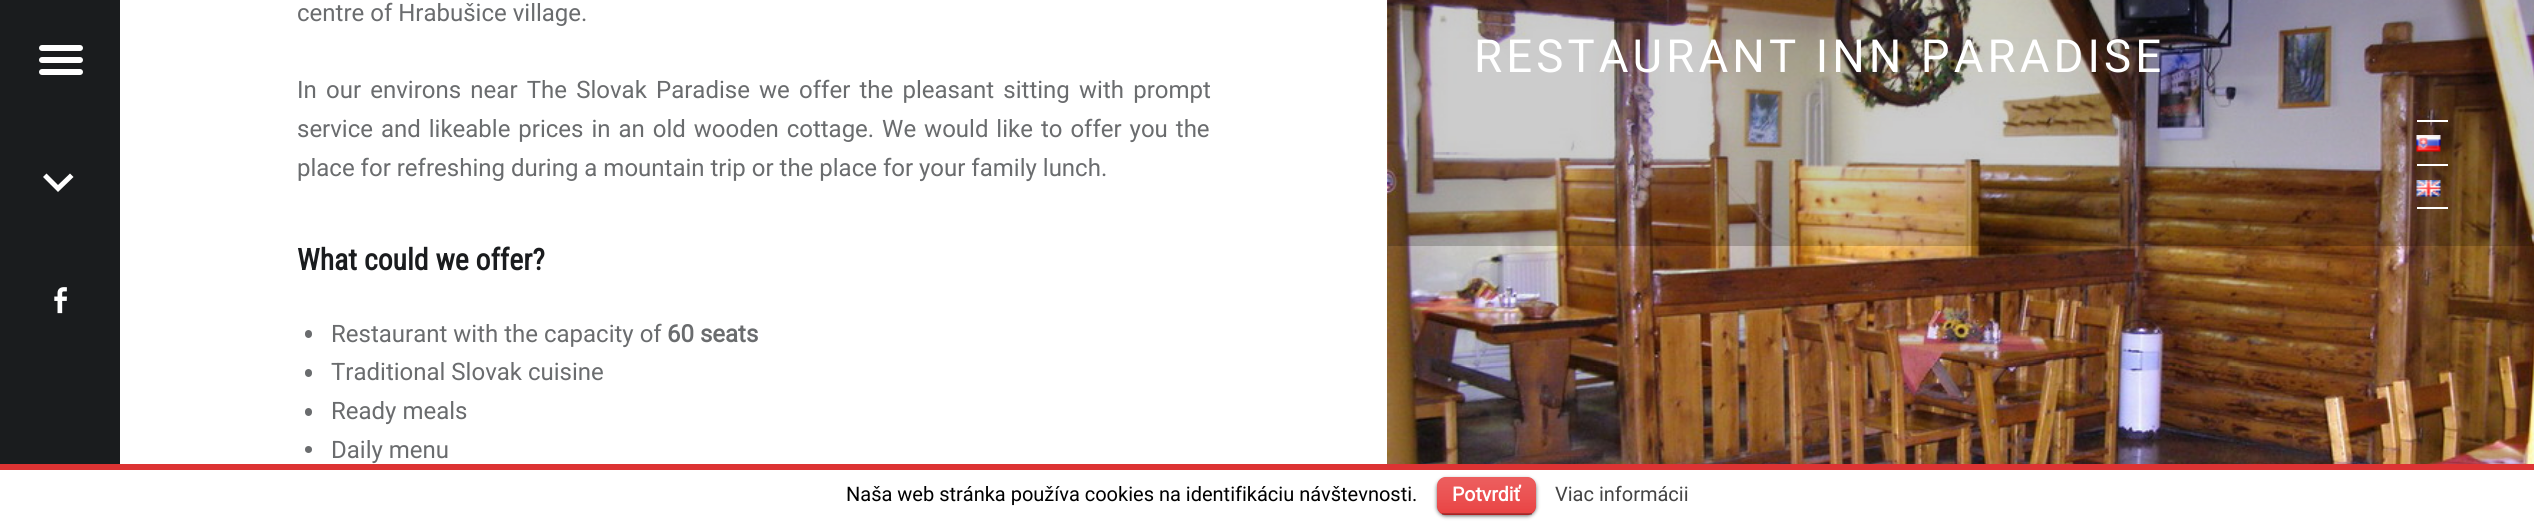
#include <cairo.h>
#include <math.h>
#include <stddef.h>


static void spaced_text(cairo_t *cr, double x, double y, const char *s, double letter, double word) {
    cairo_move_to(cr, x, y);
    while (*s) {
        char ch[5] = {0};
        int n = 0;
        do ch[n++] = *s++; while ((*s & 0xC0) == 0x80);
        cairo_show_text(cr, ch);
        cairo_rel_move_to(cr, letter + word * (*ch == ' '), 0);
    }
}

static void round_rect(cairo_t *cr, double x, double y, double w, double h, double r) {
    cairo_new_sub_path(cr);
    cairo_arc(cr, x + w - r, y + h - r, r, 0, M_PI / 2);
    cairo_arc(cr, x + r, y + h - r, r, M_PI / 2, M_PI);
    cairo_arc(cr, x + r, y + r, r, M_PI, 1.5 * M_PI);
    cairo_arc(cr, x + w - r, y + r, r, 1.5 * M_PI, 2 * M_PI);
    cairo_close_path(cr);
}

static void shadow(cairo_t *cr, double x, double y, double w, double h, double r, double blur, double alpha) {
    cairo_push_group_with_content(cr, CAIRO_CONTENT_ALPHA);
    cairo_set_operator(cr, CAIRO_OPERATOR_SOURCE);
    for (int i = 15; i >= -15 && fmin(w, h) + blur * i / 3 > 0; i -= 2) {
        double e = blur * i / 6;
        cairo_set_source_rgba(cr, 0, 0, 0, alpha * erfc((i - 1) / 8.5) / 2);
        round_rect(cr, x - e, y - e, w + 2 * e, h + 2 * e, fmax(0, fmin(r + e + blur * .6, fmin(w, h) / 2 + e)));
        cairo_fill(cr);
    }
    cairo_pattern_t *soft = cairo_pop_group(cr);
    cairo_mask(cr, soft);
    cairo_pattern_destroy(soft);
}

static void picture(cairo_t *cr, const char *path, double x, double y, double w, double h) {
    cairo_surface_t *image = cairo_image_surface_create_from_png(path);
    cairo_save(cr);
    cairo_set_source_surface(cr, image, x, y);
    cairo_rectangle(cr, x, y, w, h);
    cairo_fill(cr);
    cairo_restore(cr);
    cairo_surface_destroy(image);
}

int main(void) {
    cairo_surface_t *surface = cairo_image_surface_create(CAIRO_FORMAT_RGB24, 2534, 522);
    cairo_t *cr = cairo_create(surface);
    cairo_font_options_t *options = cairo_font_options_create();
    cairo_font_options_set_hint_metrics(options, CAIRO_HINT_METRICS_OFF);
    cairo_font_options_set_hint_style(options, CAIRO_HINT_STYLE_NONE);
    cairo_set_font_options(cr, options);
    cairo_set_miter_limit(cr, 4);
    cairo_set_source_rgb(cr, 1, 1, 1);
    cairo_paint(cr);
    cairo_select_font_face(cr, "Roboto", CAIRO_FONT_SLANT_NORMAL, CAIRO_FONT_WEIGHT_NORMAL);
    cairo_set_font_size(cr, 24);
    cairo_set_source_rgb(cr, 0.416, 0.424, 0.431);
    cairo_move_to(cr, 297, 21);
    cairo_show_text(cr, "centre of Hrabušice village.");
    spaced_text(cr, 297, 98, "In our environs near The Slovak Paradise we offer the pleasant sitting with prompt", 0, 3.25);
    spaced_text(cr, 297, 137, "service and likeable prices in an old wooden cottage. We would like to offer you the", 0, 2);
    cairo_move_to(cr, 297, 176);
    cairo_show_text(cr, "place for refreshing during a mountain trip or the place for your family lunch.");
    cairo_select_font_face(cr, "Roboto Condensed", CAIRO_FONT_SLANT_NORMAL, CAIRO_FONT_WEIGHT_BOLD);
    cairo_set_font_size(cr, 29.75);
    cairo_set_source_rgb(cr, 0.102, 0.11, 0.118);
    cairo_move_to(cr, 297, 270);
    cairo_show_text(cr, "What could we offer?");
    cairo_set_source_rgb(cr, 0.416, 0.424, 0.431);
    round_rect(cr, 305, 330, 7, 8, 3.5);
    cairo_fill(cr);
    cairo_select_font_face(cr, "Roboto", CAIRO_FONT_SLANT_NORMAL, CAIRO_FONT_WEIGHT_NORMAL);
    cairo_set_font_size(cr, 24);
    cairo_move_to(cr, 331, 342);
    cairo_show_text(cr, "Restaurant with the capacity of");
    cairo_select_font_face(cr, "Roboto", CAIRO_FONT_SLANT_NORMAL, CAIRO_FONT_WEIGHT_BOLD);
    cairo_move_to(cr, 667, 342);
    cairo_show_text(cr, "60 seats");
    round_rect(cr, 305, 369, 7, 8, 3.5);
    cairo_fill(cr);
    cairo_select_font_face(cr, "Roboto", CAIRO_FONT_SLANT_NORMAL, CAIRO_FONT_WEIGHT_NORMAL);
    cairo_move_to(cr, 331, 380);
    cairo_show_text(cr, "Traditional Slovak cuisine");
    round_rect(cr, 305, 408, 7, 8, 3.5);
    cairo_fill(cr);
    cairo_move_to(cr, 331, 419);
    cairo_show_text(cr, "Ready meals");
    cairo_new_path(cr);
    cairo_arc(cr, 308.5, 449.5, 3.5, 0, 2 * M_PI);
    cairo_fill(cr);
    cairo_move_to(cr, 331, 458);
    cairo_show_text(cr, "Daily menu");
    picture(cr, "img1.png", 1387, 0, 1147, 464);
    cairo_set_source_rgba(cr, 0, 0, 0, 0.2);
    cairo_rectangle(cr, 1388, 0, 1146, 246);
    cairo_fill(cr);
    cairo_set_source_rgb(cr, 0.102, 0.11, 0.118);
    cairo_rectangle(cr, 0, 0, 120, 464);
    cairo_fill(cr);
    cairo_set_source_rgb(cr, 1, 1, 1);
    round_rect(cr, 39, 45, 44, 6, 3);
    cairo_fill(cr);
    round_rect(cr, 39, 57, 44, 6, 3);
    cairo_fill(cr);
    round_rect(cr, 39, 69, 44, 6, 3);
    cairo_fill(cr);
    cairo_new_path(cr);
    cairo_move_to(cr, 70, 173.5);
    cairo_line_to(cr, 73.5, 177);
    cairo_line_to(cr, 58, 192);
    cairo_line_to(cr, 43, 177);
    cairo_line_to(cr, 46.5, 173.5);
    cairo_line_to(cr, 58, 185);
    cairo_close_path(cr);
    cairo_fill(cr);
    picture(cr, "img2.png", 54, 287, 13, 27);
    cairo_set_font_size(cr, 45.6);
    spaced_text(cr, 1474, 72, "RESTAURANT INN PARADISE", 4.1, 0);
    cairo_rectangle(cr, 2417, 120, 31, 2);
    cairo_fill(cr);
    cairo_rectangle(cr, 2417, 164, 31, 2);
    cairo_fill(cr);
    picture(cr, "img3.png", 2416, 135, 25, 17);
    cairo_rectangle(cr, 2417, 207, 31, 2);
    cairo_fill(cr);
    picture(cr, "img4.png", 2416, 180, 25, 17);
    cairo_set_source_rgb(cr, 0.867, 0.2, 0.2);
    cairo_rectangle(cr, 0, 464, 2534, 6);
    cairo_fill(cr);
    cairo_set_font_size(cr, 20);
    cairo_set_source_rgb(cr, 0, 0, 0);
    cairo_move_to(cr, 846, 501);
    cairo_show_text(cr, "Naša web stránka používa cookies na identifikáciu návštevnosti.");
    cairo_set_source_rgb(cr, 0, 0, 0);
    shadow(cr, 1437, 479, 99, 37, 9, 2, 0.6);
    cairo_set_source_rgb(cr, 0.902, 0.153, 0.153);
    round_rect(cr, 1437, 477, 99, 38, 9);
    cairo_fill(cr);
    picture(cr, "img5.png", 1437, 477, 99, 38);
    cairo_set_source_rgba(cr, 0, 0, 0, 0.25);
    cairo_rectangle(cr, 1442, 513, 90, 2);
    cairo_fill(cr);
    cairo_select_font_face(cr, "Roboto", CAIRO_FONT_SLANT_NORMAL, CAIRO_FONT_WEIGHT_BOLD);
    cairo_set_font_size(cr, 19.5);
    cairo_set_source_rgb(cr, 1, 1, 1);
    cairo_move_to(cr, 1452, 501);
    cairo_show_text(cr, "Potvrdiť");
    cairo_select_font_face(cr, "Roboto", CAIRO_FONT_SLANT_NORMAL, CAIRO_FONT_WEIGHT_NORMAL);
    cairo_set_font_size(cr, 20);
    cairo_set_source_rgb(cr, 0.267, 0.267, 0.267);
    cairo_move_to(cr, 1555, 501);
    cairo_show_text(cr, "Viac informácii");
    cairo_surface_write_to_png(surface, "page.png");
    cairo_font_options_destroy(options);
    cairo_destroy(cr);
    cairo_surface_destroy(surface);
    return 0;
}
